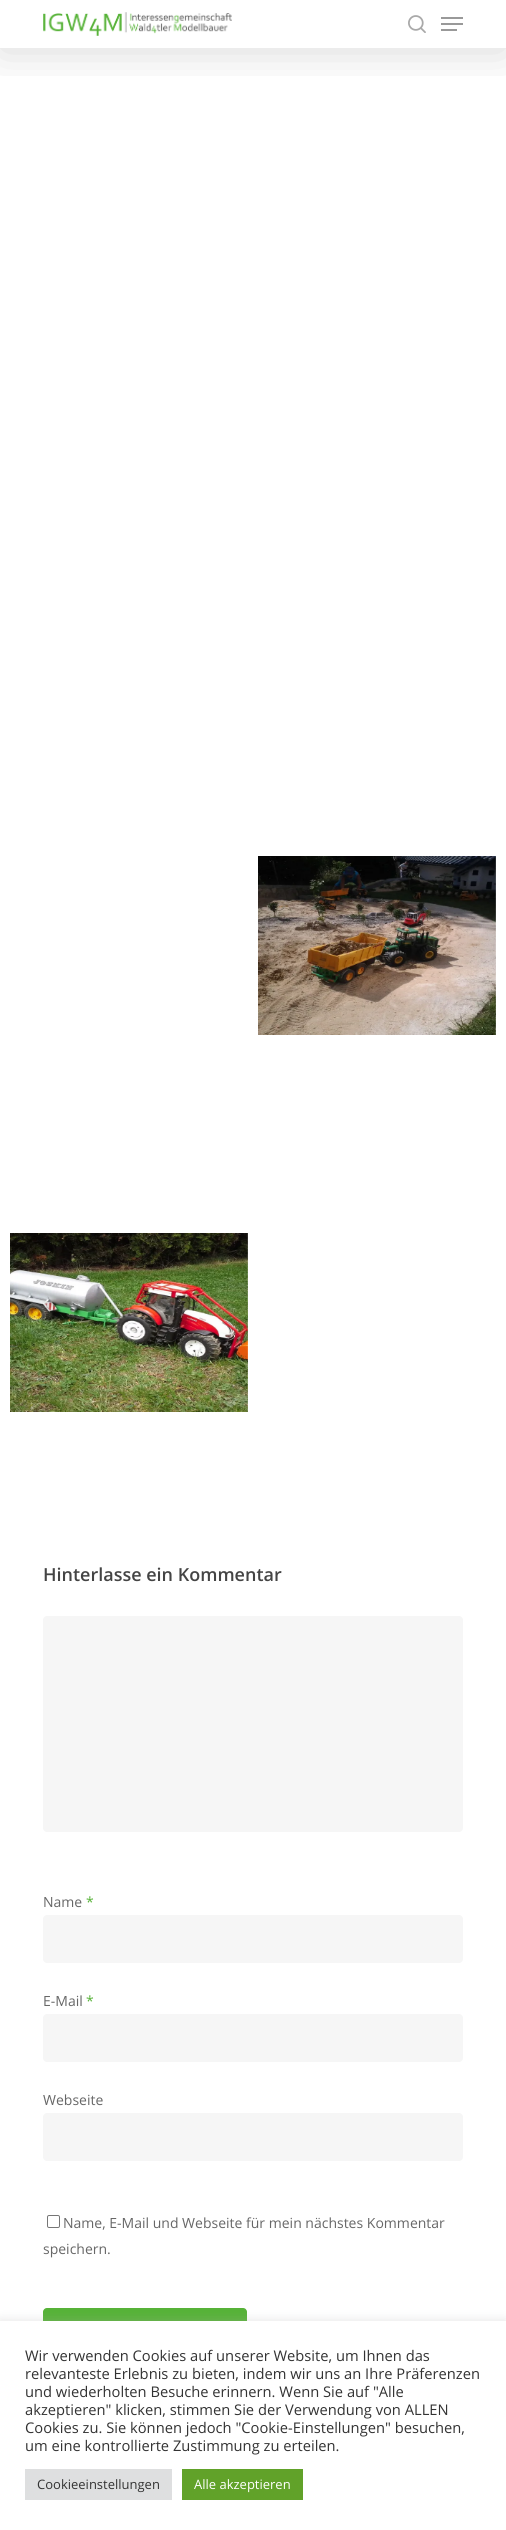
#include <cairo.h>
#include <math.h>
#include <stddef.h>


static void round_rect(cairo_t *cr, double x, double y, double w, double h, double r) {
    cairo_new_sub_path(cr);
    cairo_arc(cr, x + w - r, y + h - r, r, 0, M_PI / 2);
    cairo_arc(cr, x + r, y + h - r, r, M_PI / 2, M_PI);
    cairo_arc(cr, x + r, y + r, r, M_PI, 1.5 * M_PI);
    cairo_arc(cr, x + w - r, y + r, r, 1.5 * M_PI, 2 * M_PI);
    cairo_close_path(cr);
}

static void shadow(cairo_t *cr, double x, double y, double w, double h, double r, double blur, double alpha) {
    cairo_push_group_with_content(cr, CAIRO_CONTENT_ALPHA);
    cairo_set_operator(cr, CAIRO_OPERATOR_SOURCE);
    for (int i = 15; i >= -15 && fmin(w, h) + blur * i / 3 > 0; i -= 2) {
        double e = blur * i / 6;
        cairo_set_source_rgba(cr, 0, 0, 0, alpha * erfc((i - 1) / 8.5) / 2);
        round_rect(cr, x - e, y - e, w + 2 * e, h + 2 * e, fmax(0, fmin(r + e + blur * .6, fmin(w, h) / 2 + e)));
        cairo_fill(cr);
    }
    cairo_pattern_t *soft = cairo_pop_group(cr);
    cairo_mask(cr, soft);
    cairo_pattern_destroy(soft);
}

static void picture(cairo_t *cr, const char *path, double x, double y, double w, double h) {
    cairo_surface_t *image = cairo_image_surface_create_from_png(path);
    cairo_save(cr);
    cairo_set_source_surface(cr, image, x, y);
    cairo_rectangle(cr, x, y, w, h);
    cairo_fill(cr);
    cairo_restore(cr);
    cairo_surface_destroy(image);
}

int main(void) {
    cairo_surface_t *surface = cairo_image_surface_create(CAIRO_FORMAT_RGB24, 506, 2530);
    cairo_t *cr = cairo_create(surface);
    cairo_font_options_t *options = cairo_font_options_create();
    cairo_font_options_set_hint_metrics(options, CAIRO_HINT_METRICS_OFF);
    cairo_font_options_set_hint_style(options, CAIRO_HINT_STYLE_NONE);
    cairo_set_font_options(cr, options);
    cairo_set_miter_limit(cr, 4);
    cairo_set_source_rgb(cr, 1, 1, 1);
    cairo_paint(cr);
    cairo_save(cr);
    cairo_rectangle(cr, 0, 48, 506, 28);
    cairo_clip(cr);
    cairo_set_source_rgb(cr, 0, 0, 0);
    shadow(cr, 0, 3, 506, 48, 0, 22.5, 0.15);
    cairo_restore(cr);
    picture(cr, "img1.png", 43, 12, 189, 24);
    picture(cr, "img2.png", 408, 15, 18, 18);
    cairo_set_source_rgb(cr, 0.6, 0.6, 0.6);
    cairo_rectangle(cr, 441, 17, 22, 2);
    cairo_fill(cr);
    cairo_rectangle(cr, 441, 29, 16, 2);
    cairo_fill(cr);
    cairo_rectangle(cr, 441, 23, 22, 2);
    cairo_fill(cr);
    picture(cr, "img3.png", 258, 856, 238, 179);
    picture(cr, "img4.png", 10, 1233, 238, 179);
    cairo_select_font_face(cr, "Open Sans SemiBold", CAIRO_FONT_SLANT_NORMAL, CAIRO_FONT_WEIGHT_NORMAL);
    cairo_set_font_size(cr, 18);
    cairo_set_source_rgb(cr, 0.267, 0.267, 0.267);
    cairo_move_to(cr, 43, 1581);
    cairo_show_text(cr, "Hinterlasse ein Kommentar");
    cairo_set_source_rgb(cr, 0.961, 0.961, 0.961);
    round_rect(cr, 43, 1616, 420, 216, 4);
    cairo_fill(cr);
    cairo_select_font_face(cr, "Open Sans", CAIRO_FONT_SLANT_NORMAL, CAIRO_FONT_WEIGHT_NORMAL);
    cairo_set_font_size(cr, 14);
    cairo_set_source_rgb(cr, 0.404, 0.404, 0.404);
    cairo_move_to(cr, 43, 1907);
    cairo_show_text(cr, "Name");
    cairo_set_source_rgb(cr, 0.337, 0.698, 0.216);
    cairo_move_to(cr, 86, 1907);
    cairo_show_text(cr, "*");
    cairo_set_source_rgb(cr, 0.961, 0.961, 0.961);
    round_rect(cr, 43, 1915, 420, 48, 4);
    cairo_fill(cr);
    cairo_set_source_rgb(cr, 0.404, 0.404, 0.404);
    cairo_move_to(cr, 43, 2006);
    cairo_show_text(cr, "E-Mail");
    cairo_set_source_rgb(cr, 0.337, 0.698, 0.216);
    cairo_move_to(cr, 86, 2006);
    cairo_show_text(cr, "*");
    cairo_set_source_rgb(cr, 0.961, 0.961, 0.961);
    round_rect(cr, 43, 2014, 420, 48, 4);
    cairo_fill(cr);
    cairo_set_source_rgb(cr, 0.404, 0.404, 0.404);
    cairo_move_to(cr, 43, 2105);
    cairo_show_text(cr, "Webseite");
    cairo_set_source_rgb(cr, 0.961, 0.961, 0.961);
    round_rect(cr, 43, 2113, 420, 48, 4);
    cairo_fill(cr);
    round_rect(cr, 47.5, 2215.5, 12, 12, 1.5);
    cairo_set_source_rgb(cr, 0.463, 0.463, 0.463);
    cairo_set_line_width(cr, 1);
    cairo_stroke(cr);
    cairo_set_source_rgb(cr, 0.404, 0.404, 0.404);
    cairo_move_to(cr, 63, 2228);
    cairo_show_text(cr, "Name, E-Mail und Webseite für mein nächstes Kommentar");
    cairo_move_to(cr, 43, 2254);
    cairo_show_text(cr, "speichern.");
    cairo_set_source_rgb(cr, 0.337, 0.698, 0.216);
    round_rect(cr, 43, 2308, 204, 49, 4);
    cairo_fill(cr);
    cairo_set_source_rgb(cr, 0.675, 0.671, 0.671);
    shadow(cr, 0, 2320, 506, 209, 0, 5, 0.3);
    cairo_set_source_rgb(cr, 1, 1, 1);
    cairo_rectangle(cr, 0, 2321, 506, 209);
    cairo_fill(cr);
    cairo_set_font_size(cr, 14.7);
    cairo_set_source_rgb(cr, 0.2, 0.2, 0.2);
    cairo_move_to(cr, 25, 2361);
    cairo_show_text(cr, "Wir verwenden Cookies auf unserer Website, um Ihnen das");
    cairo_move_to(cr, 25, 2379);
    cairo_show_text(cr, "relevanteste Erlebnis zu bieten, indem wir uns an Ihre Präferenzen");
    cairo_move_to(cr, 25, 2397);
    cairo_show_text(cr, "und wiederholten Besuche erinnern. Wenn Sie auf \"Alle");
    cairo_move_to(cr, 25, 2415);
    cairo_show_text(cr, "akzeptieren\" klicken, stimmen Sie der Verwendung von ALLEN");
    cairo_move_to(cr, 25, 2433);
    cairo_show_text(cr, "Cookies zu. Sie können jedoch \"Cookie-Einstellungen\" besuchen,");
    cairo_move_to(cr, 25, 2451);
    cairo_show_text(cr, "um eine kontrollierte Zustimmung zu erteilen.");
    cairo_set_source_rgb(cr, 0.871, 0.875, 0.878);
    cairo_rectangle(cr, 25, 2469, 147, 31);
    cairo_fill(cr);
    cairo_set_font_size(cr, 13);
    cairo_set_source_rgb(cr, 0.2, 0.2, 0.2);
    cairo_move_to(cr, 37, 2489);
    cairo_show_text(cr, "Cookieeinstellungen");
    cairo_set_source_rgb(cr, 0.38, 0.635, 0.161);
    cairo_rectangle(cr, 182, 2469, 121, 31);
    cairo_fill(cr);
    cairo_set_source_rgb(cr, 1, 1, 1);
    cairo_move_to(cr, 194, 2489);
    cairo_show_text(cr, "Alle akzeptieren");
    cairo_surface_write_to_png(surface, "page.png");
    cairo_font_options_destroy(options);
    cairo_destroy(cr);
    cairo_surface_destroy(surface);
    return 0;
}
